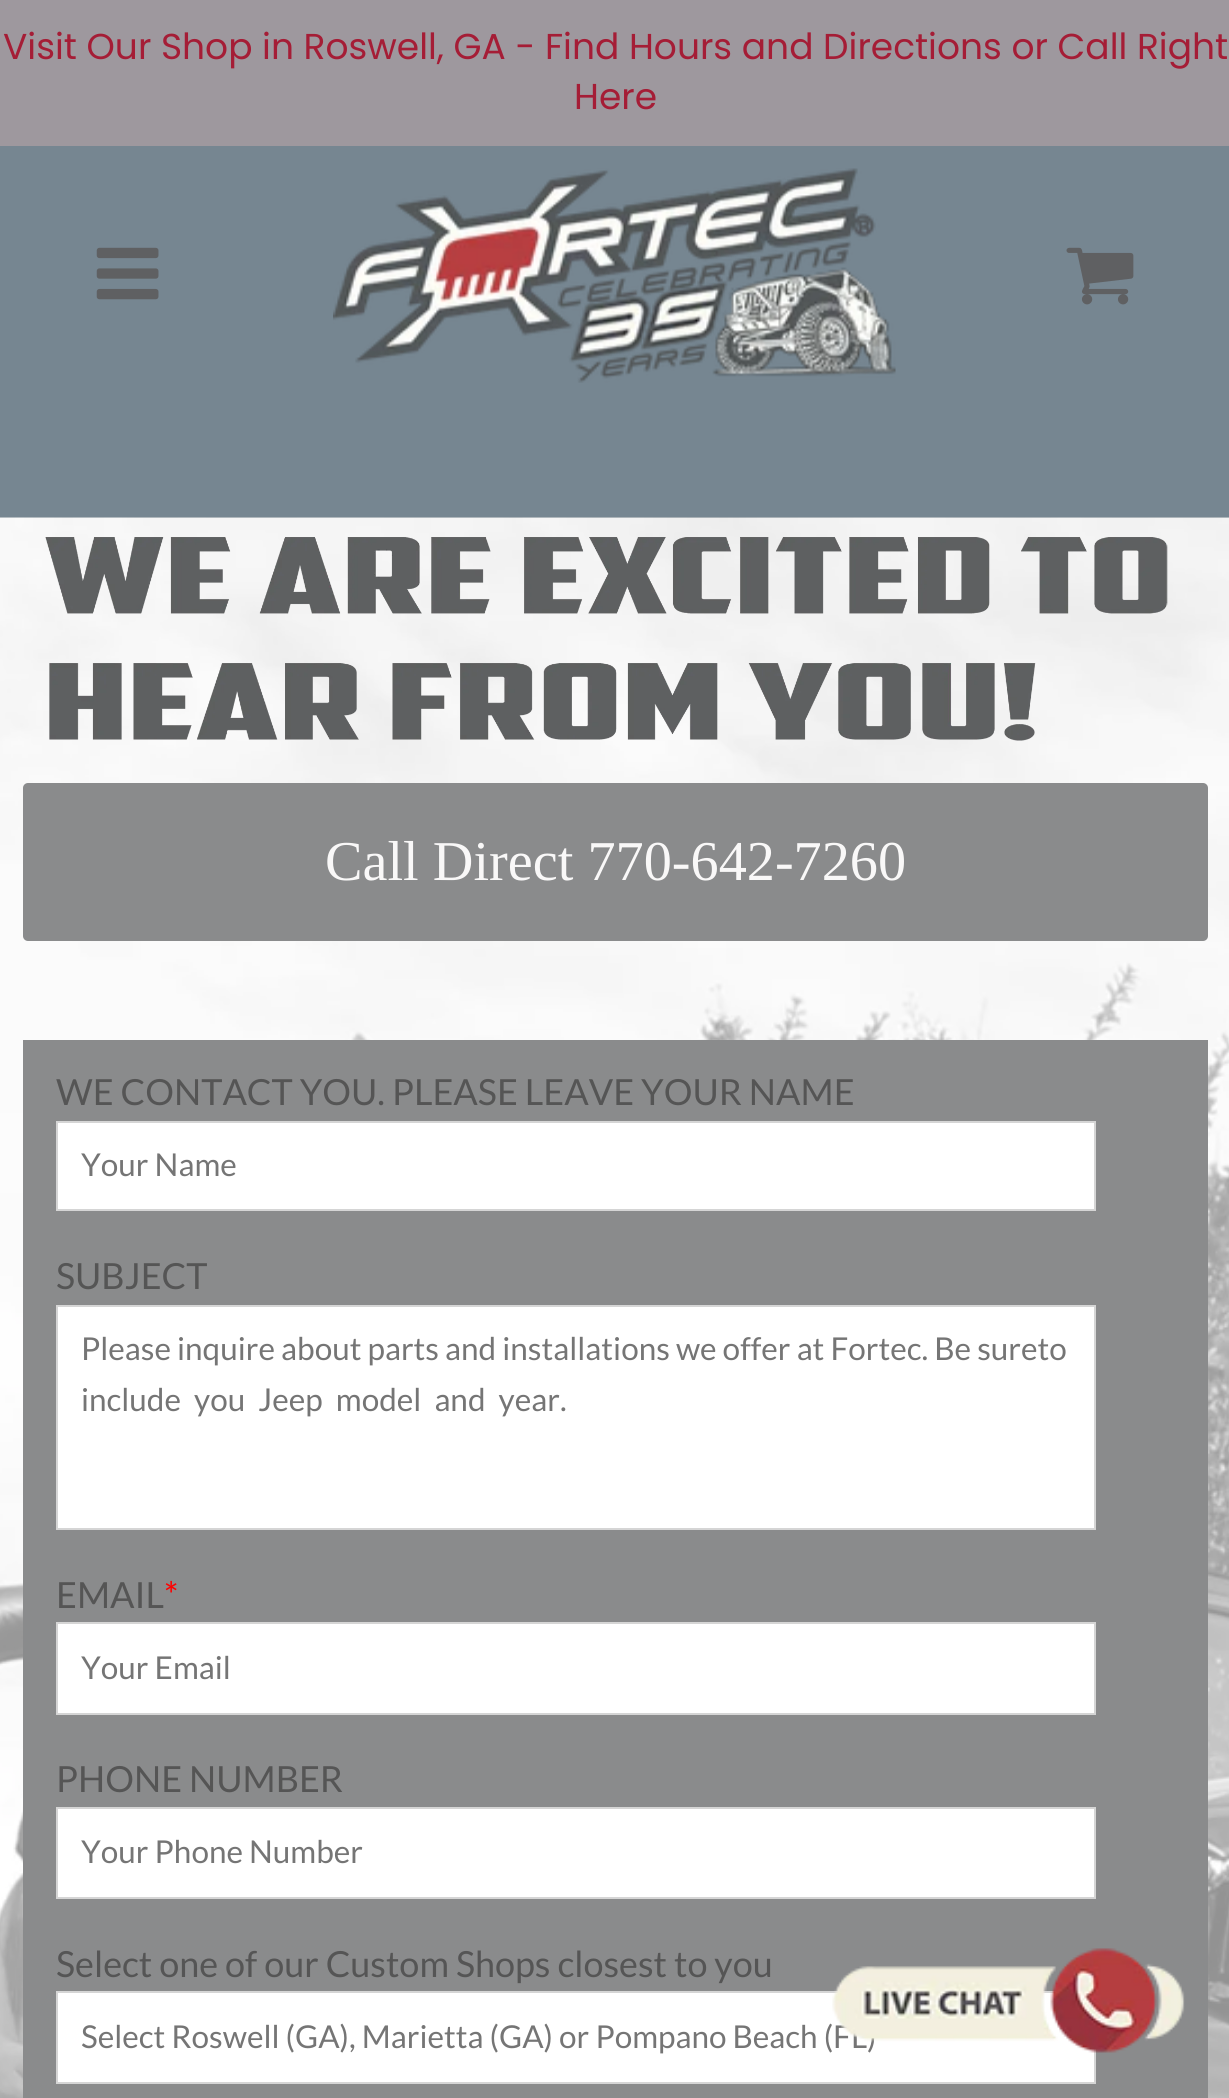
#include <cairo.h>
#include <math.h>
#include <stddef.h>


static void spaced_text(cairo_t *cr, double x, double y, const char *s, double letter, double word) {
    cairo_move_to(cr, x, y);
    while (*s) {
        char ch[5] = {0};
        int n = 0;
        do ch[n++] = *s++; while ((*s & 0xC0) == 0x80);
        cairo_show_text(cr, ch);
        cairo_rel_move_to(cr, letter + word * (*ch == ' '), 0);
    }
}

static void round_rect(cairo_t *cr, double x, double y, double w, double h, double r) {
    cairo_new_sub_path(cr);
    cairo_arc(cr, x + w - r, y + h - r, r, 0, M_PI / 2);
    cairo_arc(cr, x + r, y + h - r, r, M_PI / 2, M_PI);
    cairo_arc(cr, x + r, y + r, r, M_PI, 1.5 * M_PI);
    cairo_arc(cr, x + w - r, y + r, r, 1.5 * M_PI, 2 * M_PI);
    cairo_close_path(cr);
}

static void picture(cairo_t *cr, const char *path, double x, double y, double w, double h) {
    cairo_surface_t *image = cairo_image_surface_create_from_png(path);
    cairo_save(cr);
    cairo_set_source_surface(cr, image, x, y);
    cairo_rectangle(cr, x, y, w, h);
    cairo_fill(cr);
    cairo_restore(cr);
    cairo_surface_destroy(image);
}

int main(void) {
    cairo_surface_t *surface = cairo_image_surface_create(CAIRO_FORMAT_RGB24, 1229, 2098);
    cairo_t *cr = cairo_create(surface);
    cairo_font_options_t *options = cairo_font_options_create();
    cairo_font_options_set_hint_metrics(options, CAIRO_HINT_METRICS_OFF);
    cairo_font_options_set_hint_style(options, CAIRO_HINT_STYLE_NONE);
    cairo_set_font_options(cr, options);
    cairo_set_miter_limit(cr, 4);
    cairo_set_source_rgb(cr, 1, 1, 1);
    cairo_paint(cr);
    picture(cr, "img1.png", 0, 146, 1229, 372);
    cairo_set_source_rgb(cr, 0.62, 0.596, 0.62);
    cairo_rectangle(cr, 0, 0, 1229, 146);
    cairo_fill(cr);
    cairo_select_font_face(cr, "Poppins", CAIRO_FONT_SLANT_NORMAL, CAIRO_FONT_WEIGHT_NORMAL);
    cairo_set_font_size(cr, 36);
    cairo_set_source_rgb(cr, 0.647, 0.114, 0.212);
    cairo_move_to(cr, 3, 59);
    cairo_show_text(cr, "Visit Our Shop in Roswell, GA - Find Hours and Directions or Call Right");
    cairo_move_to(cr, 574, 109);
    cairo_show_text(cr, "Here");
    picture(cr, "img2.png", 96, 247, 63, 53);
    picture(cr, "img3.png", 333, 168, 563, 215);
    picture(cr, "img4.png", 1066, 247, 68, 58);
    picture(cr, "img5.png", 0, 517, 1229, 1581);
    picture(cr, "img6.png", 45, 537, 1123, 204);
    cairo_set_source_rgb(cr, 0.541, 0.545, 0.549);
    round_rect(cr, 23, 783, 1185, 158, 5);
    cairo_fill(cr);
    cairo_select_font_face(cr, "Liberation Serif", CAIRO_FONT_SLANT_NORMAL, CAIRO_FONT_WEIGHT_NORMAL);
    cairo_set_font_size(cr, 56.25);
    cairo_set_source_rgb(cr, 0.973, 0.969, 0.969);
    cairo_move_to(cr, 325, 880);
    cairo_show_text(cr, "Call Direct 770-642-7260");
    cairo_set_source_rgb(cr, 0.541, 0.545, 0.549);
    cairo_rectangle(cr, 23, 1040, 1185, 1058);
    cairo_fill(cr);
    cairo_select_font_face(cr, "Lato", CAIRO_FONT_SLANT_NORMAL, CAIRO_FONT_WEIGHT_NORMAL);
    cairo_set_font_size(cr, 36);
    cairo_set_source_rgb(cr, 0.333, 0.333, 0.333);
    cairo_move_to(cr, 56, 1105);
    cairo_show_text(cr, "WE CONTACT YOU. PLEASE LEAVE YOUR NAME");
    cairo_set_source_rgb(cr, 1, 1, 1);
    cairo_rectangle(cr, 57, 1122, 1038, 88);
    cairo_fill_preserve(cr);
    cairo_set_source_rgb(cr, 0.835, 0.835, 0.835);
    cairo_stroke(cr);
    cairo_set_font_size(cr, 31.5);
    cairo_set_source_rgb(cr, 0.459, 0.459, 0.459);
    cairo_move_to(cr, 81, 1176);
    cairo_show_text(cr, "Your Name");
    cairo_set_font_size(cr, 36);
    cairo_set_source_rgb(cr, 0.333, 0.333, 0.333);
    cairo_move_to(cr, 56, 1289);
    cairo_show_text(cr, "SUBJECT");
    cairo_set_source_rgb(cr, 1, 1, 1);
    cairo_rectangle(cr, 57, 1306, 1038, 223);
    cairo_fill_preserve(cr);
    cairo_set_source_rgb(cr, 0.835, 0.835, 0.835);
    cairo_stroke(cr);
    cairo_set_font_size(cr, 31.5);
    cairo_set_source_rgb(cr, 0.459, 0.459, 0.459);
    cairo_move_to(cr, 81, 1360);
    cairo_show_text(cr, "Please inquire about parts and installations we offer at Fortec. Be sureto");
    spaced_text(cr, 81, 1411, "include you Jeep model and year.", 0, 7);
    cairo_set_font_size(cr, 36);
    cairo_set_source_rgb(cr, 0.333, 0.333, 0.333);
    cairo_move_to(cr, 56, 1608);
    cairo_show_text(cr, "EMAIL");
    cairo_set_source_rgb(cr, 1, 0, 0);
    cairo_move_to(cr, 164, 1608);
    cairo_show_text(cr, "*");
    cairo_set_source_rgb(cr, 1, 1, 1);
    cairo_rectangle(cr, 57, 1623, 1038, 91);
    cairo_fill_preserve(cr);
    cairo_set_source_rgb(cr, 0.835, 0.835, 0.835);
    cairo_stroke(cr);
    cairo_set_font_size(cr, 31.5);
    cairo_set_source_rgb(cr, 0.459, 0.459, 0.459);
    cairo_move_to(cr, 81, 1679);
    cairo_show_text(cr, "Your Email");
    cairo_set_font_size(cr, 36);
    cairo_set_source_rgb(cr, 0.333, 0.333, 0.333);
    cairo_move_to(cr, 56, 1792);
    cairo_show_text(cr, "PHONE NUMBER");
    cairo_set_source_rgb(cr, 1, 1, 1);
    cairo_rectangle(cr, 57, 1808, 1038, 90);
    cairo_fill_preserve(cr);
    cairo_set_source_rgb(cr, 0.835, 0.835, 0.835);
    cairo_stroke(cr);
    cairo_set_font_size(cr, 31.5);
    cairo_set_source_rgb(cr, 0.459, 0.459, 0.459);
    cairo_move_to(cr, 81, 1863);
    cairo_show_text(cr, "Your Phone Number");
    cairo_set_font_size(cr, 36);
    cairo_set_source_rgb(cr, 0.333, 0.333, 0.333);
    cairo_move_to(cr, 56, 1977);
    cairo_show_text(cr, "Select one of our Custom Shops closest to you");
    cairo_set_source_rgb(cr, 1, 1, 1);
    cairo_rectangle(cr, 57, 1992, 1038, 91);
    cairo_fill_preserve(cr);
    cairo_set_source_rgb(cr, 0.835, 0.835, 0.835);
    cairo_stroke(cr);
    cairo_set_font_size(cr, 31.5);
    cairo_set_source_rgb(cr, 0.459, 0.459, 0.459);
    cairo_move_to(cr, 81, 2048);
    cairo_show_text(cr, "Select Roswell (GA), Marietta (GA) or Pompano Beach (FL)");
    picture(cr, "img7.png", 832, 1948, 353, 105);
    cairo_surface_write_to_png(surface, "page.png");
    cairo_font_options_destroy(options);
    cairo_destroy(cr);
    cairo_surface_destroy(surface);
    return 0;
}
